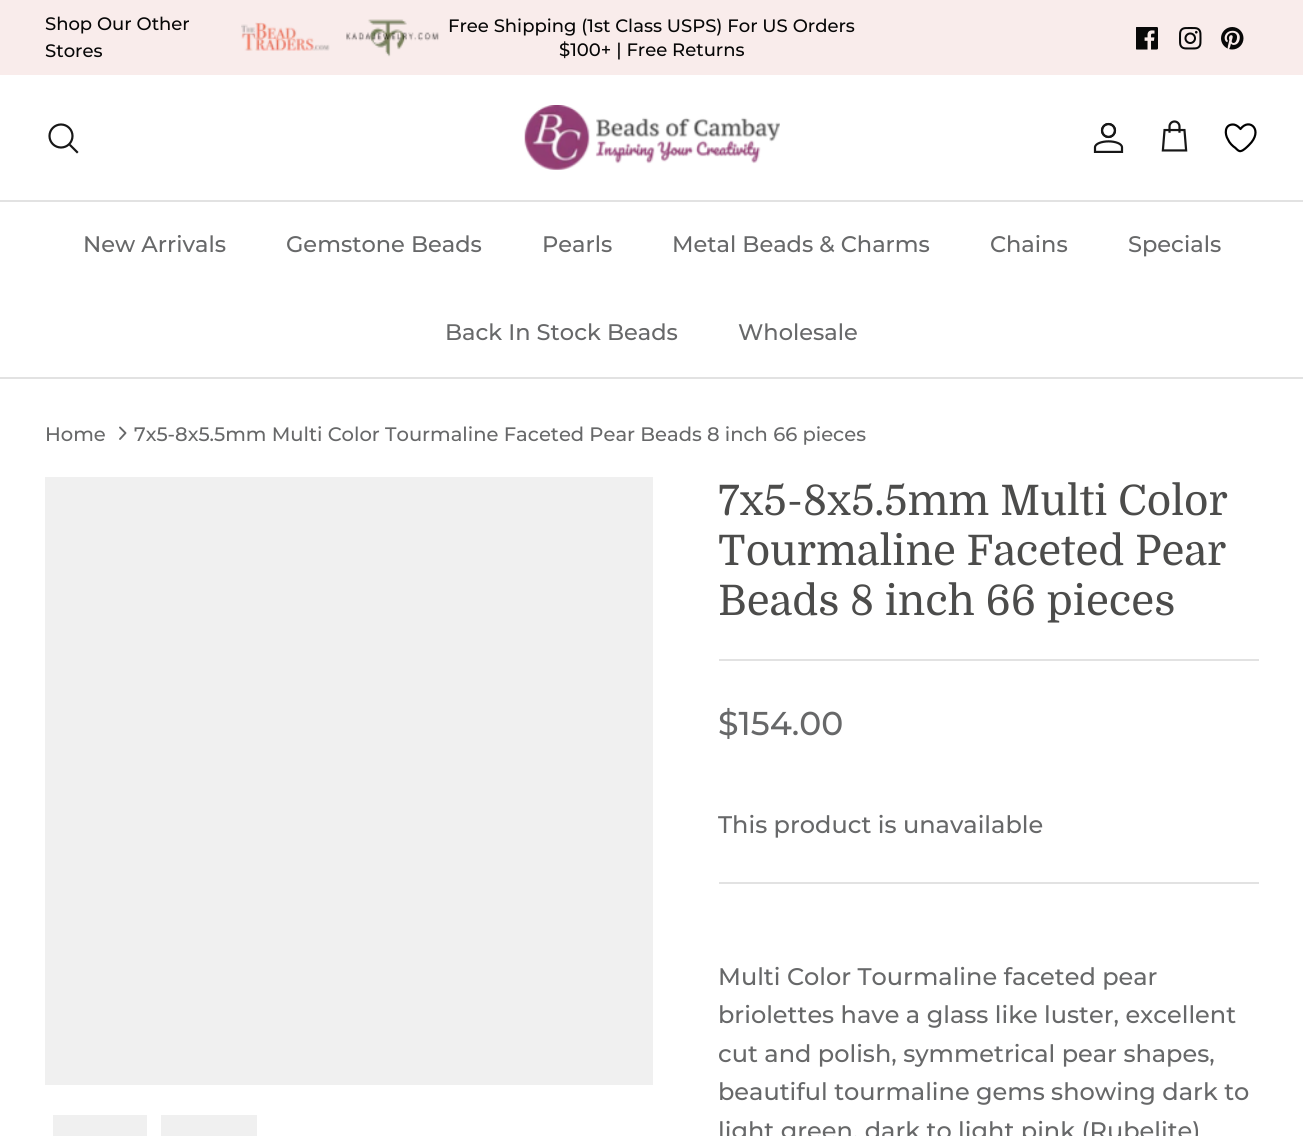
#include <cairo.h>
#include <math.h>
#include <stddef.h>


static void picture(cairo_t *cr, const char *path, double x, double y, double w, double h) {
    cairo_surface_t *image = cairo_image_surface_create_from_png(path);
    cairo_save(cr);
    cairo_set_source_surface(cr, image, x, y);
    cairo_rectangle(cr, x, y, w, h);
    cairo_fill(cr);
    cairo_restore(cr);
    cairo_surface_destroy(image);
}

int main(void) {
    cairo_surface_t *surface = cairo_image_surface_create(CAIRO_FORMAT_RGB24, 1303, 1136);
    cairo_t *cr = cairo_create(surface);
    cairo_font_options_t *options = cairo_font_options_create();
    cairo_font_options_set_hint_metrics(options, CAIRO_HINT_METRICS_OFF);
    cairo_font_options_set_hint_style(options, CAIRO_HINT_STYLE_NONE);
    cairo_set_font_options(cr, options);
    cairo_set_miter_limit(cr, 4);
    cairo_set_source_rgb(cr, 1, 1, 1);
    cairo_paint(cr);
    cairo_set_source_rgb(cr, 0.976, 0.925, 0.918);
    cairo_rectangle(cr, 0, 0, 1303, 75);
    cairo_fill(cr);
    cairo_select_font_face(cr, "Montserrat Medium", CAIRO_FONT_SLANT_NORMAL, CAIRO_FONT_WEIGHT_NORMAL);
    cairo_set_font_size(cr, 18);
    cairo_set_source_rgb(cr, 0.031, 0.031, 0.031);
    cairo_move_to(cr, 45, 30);
    cairo_show_text(cr, "Shop Our Other");
    cairo_move_to(cr, 45, 57);
    cairo_show_text(cr, "Stores");
    picture(cr, "img1.png", 241, 22, 89, 29);
    picture(cr, "img2.png", 346, 19, 93, 38);
    cairo_move_to(cr, 448, 32);
    cairo_show_text(cr, "Free Shipping (1st Class USPS) For US Orders");
    cairo_move_to(cr, 559, 56);
    cairo_show_text(cr, "$100+ | Free Returns");
    picture(cr, "img3.png", 1136, 27, 22, 23);
    picture(cr, "img4.png", 1179, 27, 23, 23);
    picture(cr, "img5.png", 1221, 27, 23, 23);
    cairo_set_source_rgb(cr, 0.886, 0.886, 0.886);
    cairo_rectangle(cr, 0, 200, 1303, 2);
    cairo_fill(cr);
    cairo_arc(cr, 61, 136, 11.5, 0, 2 * M_PI);
    cairo_set_source_rgb(cr, 0.09, 0.09, 0.09);
    cairo_set_line_width(cr, 2.2);
    cairo_stroke(cr);
    cairo_new_path(cr);
    cairo_move_to(cr, 70.5, 145.5);
    cairo_line_to(cr, 77, 152);
    cairo_set_line_cap(cr, CAIRO_LINE_CAP_SQUARE);
    cairo_stroke(cr);
    picture(cr, "img6.png", 524, 105, 256, 65);
    picture(cr, "img7.png", 1093, 122, 31, 31);
    picture(cr, "img8.png", 1161, 120, 27, 32);
    cairo_new_path(cr);
    cairo_move_to(cr, 1233, 124.5);
    cairo_curve_to(cr, 1224.5, 124.5, 1224.5, 134, 1228, 139.5);
    cairo_curve_to(cr, 1229.5, 143, 1232.5, 146, 1235.5, 148);
    cairo_curve_to(cr, 1236, 148.5, 1239, 152, 1241, 151);
    cairo_curve_to(cr, 1243.5, 150.5, 1247, 147, 1249, 145);
    cairo_curve_to(cr, 1264, 130.5, 1249.5, 117, 1240.5, 129);
    cairo_curve_to(cr, 1240.5, 129, 1237, 124.5, 1233, 124.5);
    cairo_close_path(cr);
    cairo_set_source_rgb(cr, 0, 0, 0);
    cairo_set_line_cap(cr, CAIRO_LINE_CAP_ROUND);
    cairo_set_line_join(cr, CAIRO_LINE_JOIN_ROUND);
    cairo_stroke(cr);
    cairo_set_source_rgb(cr, 0.886, 0.886, 0.886);
    cairo_rectangle(cr, 0, 377, 1303, 2);
    cairo_fill(cr);
    cairo_set_font_size(cr, 22.5);
    cairo_set_source_rgb(cr, 0.404, 0.408, 0.412);
    cairo_move_to(cr, 83, 252);
    cairo_show_text(cr, "New Arrivals");
    cairo_move_to(cr, 286, 252);
    cairo_show_text(cr, "Gemstone Beads");
    cairo_move_to(cr, 542, 252);
    cairo_show_text(cr, "Pearls");
    cairo_move_to(cr, 672, 252);
    cairo_show_text(cr, "Metal Beads & Charms");
    cairo_move_to(cr, 990, 252);
    cairo_show_text(cr, "Chains");
    cairo_move_to(cr, 1128, 252);
    cairo_show_text(cr, "Specials");
    cairo_move_to(cr, 445, 340);
    cairo_show_text(cr, "Back In Stock Beads");
    cairo_move_to(cr, 738, 340);
    cairo_show_text(cr, "Wholesale");
    cairo_set_font_size(cr, 19.5);
    cairo_move_to(cr, 45, 441);
    cairo_show_text(cr, "Home");
    cairo_new_path(cr);
    cairo_move_to(cr, 120, 439);
    cairo_line_to(cr, 125.5, 433);
    cairo_line_to(cr, 120, 427.5);
    cairo_set_line_width(cr, 1.9);
    cairo_stroke(cr);
    cairo_move_to(cr, 134, 441);
    cairo_show_text(cr, "7x5-8x5.5mm Multi Color Tourmaline Faceted Pear Beads 8 inch 66 pieces");
    cairo_set_source_rgb(cr, 0.941, 0.941, 0.941);
    cairo_rectangle(cr, 45, 477, 608, 608);
    cairo_fill(cr);
    cairo_rectangle(cr, 53, 1115, 94, 21);
    cairo_fill(cr);
    cairo_rectangle(cr, 161, 1115, 96, 21);
    cairo_fill(cr);
    cairo_select_font_face(cr, "Domine", CAIRO_FONT_SLANT_NORMAL, CAIRO_FONT_WEIGHT_NORMAL);
    cairo_set_font_size(cr, 42);
    cairo_set_source_rgb(cr, 0.298, 0.298, 0.294);
    cairo_move_to(cr, 718, 515);
    cairo_show_text(cr, "7x5-8x5.5mm Multi Color");
    cairo_move_to(cr, 718, 565);
    cairo_show_text(cr, "Tourmaline Faceted Pear");
    cairo_move_to(cr, 718, 615);
    cairo_show_text(cr, "Beads 8 inch 66 pieces");
    cairo_set_source_rgb(cr, 0.886, 0.886, 0.886);
    cairo_rectangle(cr, 719, 659, 540, 2);
    cairo_fill(cr);
    cairo_select_font_face(cr, "Montserrat Medium", CAIRO_FONT_SLANT_NORMAL, CAIRO_FONT_WEIGHT_NORMAL);
    cairo_set_font_size(cr, 33);
    cairo_set_source_rgb(cr, 0.404, 0.408, 0.412);
    cairo_move_to(cr, 718, 735);
    cairo_show_text(cr, "$154.00");
    cairo_set_font_size(cr, 24);
    cairo_move_to(cr, 718, 833);
    cairo_show_text(cr, "This product is unavailable");
    cairo_set_source_rgb(cr, 0.886, 0.886, 0.886);
    cairo_rectangle(cr, 719, 882, 540, 2);
    cairo_fill(cr);
    cairo_set_source_rgb(cr, 0.404, 0.408, 0.412);
    cairo_move_to(cr, 718, 985);
    cairo_show_text(cr, "Multi Color Tourmaline faceted pear");
    cairo_move_to(cr, 718, 1023);
    cairo_show_text(cr, "briolettes have a glass like luster, excellent");
    cairo_move_to(cr, 718, 1062);
    cairo_show_text(cr, "cut and polish, symmetrical pear shapes,");
    cairo_move_to(cr, 718, 1100);
    cairo_show_text(cr, "beautiful tourmaline gems showing dark to");
    cairo_move_to(cr, 718, 1139);
    cairo_show_text(cr, "light green, dark to light pink (Rubelite)");
    cairo_surface_write_to_png(surface, "page.png");
    cairo_font_options_destroy(options);
    cairo_destroy(cr);
    cairo_surface_destroy(surface);
    return 0;
}
